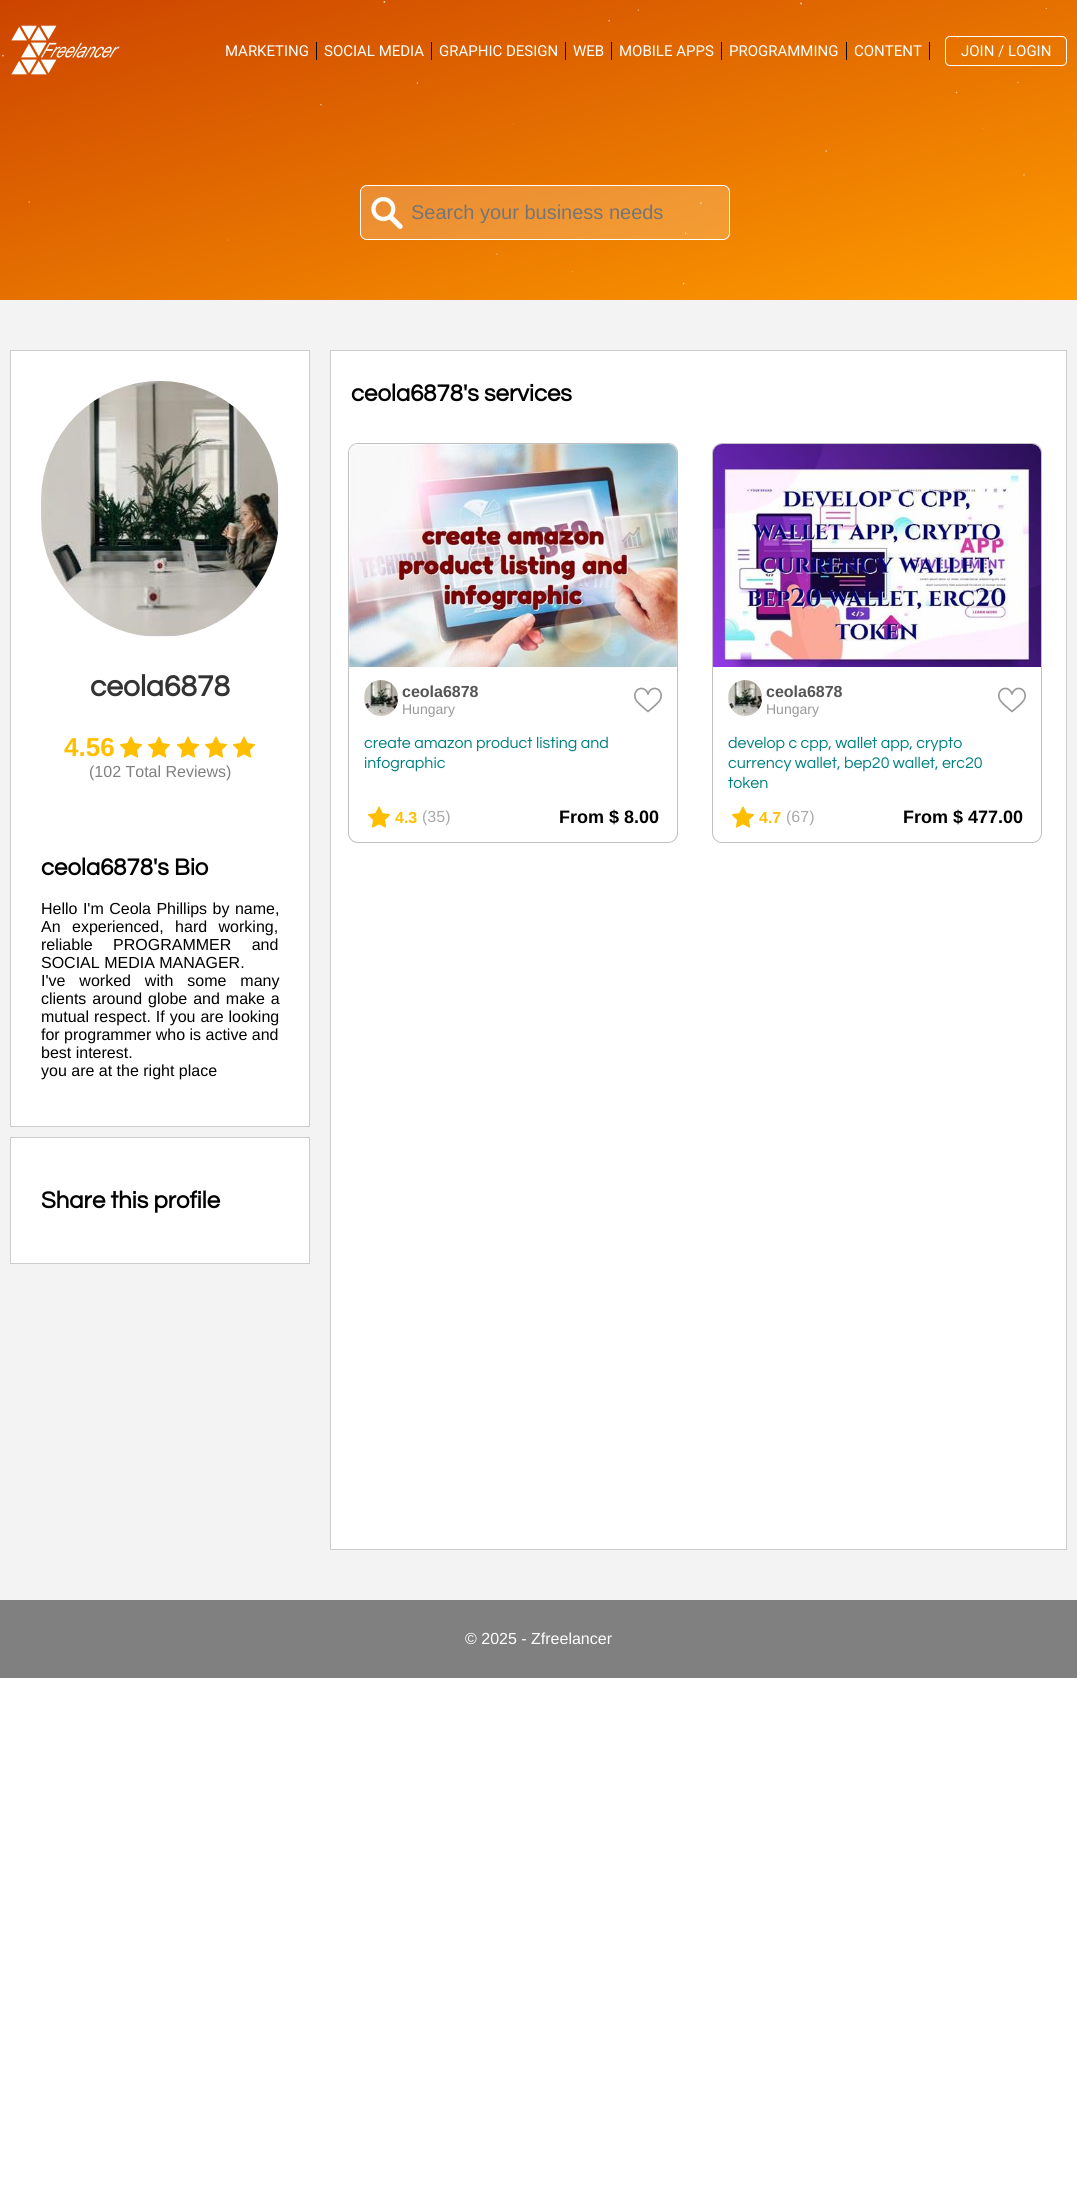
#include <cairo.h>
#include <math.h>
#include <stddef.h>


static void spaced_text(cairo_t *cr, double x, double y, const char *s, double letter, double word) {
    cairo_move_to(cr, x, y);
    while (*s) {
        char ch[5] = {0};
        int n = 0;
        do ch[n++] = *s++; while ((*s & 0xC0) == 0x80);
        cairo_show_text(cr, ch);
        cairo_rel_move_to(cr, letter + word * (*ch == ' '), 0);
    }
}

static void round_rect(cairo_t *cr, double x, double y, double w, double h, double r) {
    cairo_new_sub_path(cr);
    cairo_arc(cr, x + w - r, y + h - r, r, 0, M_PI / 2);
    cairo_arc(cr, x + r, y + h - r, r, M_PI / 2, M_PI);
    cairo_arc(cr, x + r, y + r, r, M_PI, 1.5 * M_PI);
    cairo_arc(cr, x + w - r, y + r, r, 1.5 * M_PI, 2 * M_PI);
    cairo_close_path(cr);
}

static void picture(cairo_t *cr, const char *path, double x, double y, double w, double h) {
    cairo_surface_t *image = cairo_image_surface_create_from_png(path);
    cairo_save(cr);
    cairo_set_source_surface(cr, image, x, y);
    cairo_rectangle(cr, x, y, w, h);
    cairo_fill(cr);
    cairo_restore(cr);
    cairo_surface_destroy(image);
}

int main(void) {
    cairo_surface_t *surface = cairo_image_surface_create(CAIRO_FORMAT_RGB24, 1077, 2185);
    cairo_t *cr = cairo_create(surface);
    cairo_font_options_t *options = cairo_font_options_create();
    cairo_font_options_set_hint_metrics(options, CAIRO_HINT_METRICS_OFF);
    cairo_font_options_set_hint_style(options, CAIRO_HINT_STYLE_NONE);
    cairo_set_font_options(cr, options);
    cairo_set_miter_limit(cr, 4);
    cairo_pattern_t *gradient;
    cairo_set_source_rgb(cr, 1, 1, 1);
    cairo_paint(cr);
    gradient = cairo_pattern_create_linear(461, -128, 616, 428);
    cairo_pattern_add_color_stop_rgba(gradient, 0, 0.8, 0.267, 0, 1);
    cairo_pattern_add_color_stop_rgba(gradient, 1, 1, 0.612, 0, 1);
    cairo_set_source(cr, gradient);
    cairo_pattern_destroy(gradient);
    cairo_rectangle(cr, 0, 0, 1077, 300);
    cairo_fill(cr);
    picture(cr, "img1.png", 2, 1, 1045, 284);
    picture(cr, "img2.png", 11, 25, 109, 50);
    cairo_set_source_rgb(cr, 0, 0, 0);
    cairo_rectangle(cr, 316, 42, 1, 18);
    cairo_fill(cr);
    cairo_select_font_face(cr, "Roboto", CAIRO_FONT_SLANT_NORMAL, CAIRO_FONT_WEIGHT_NORMAL);
    cairo_set_font_size(cr, 15);
    cairo_set_source_rgb(cr, 1, 1, 1);
    cairo_move_to(cr, 225, 56);
    cairo_show_text(cr, "MARKETING");
    cairo_set_source_rgb(cr, 0, 0, 0);
    cairo_rectangle(cr, 431, 42, 1, 18);
    cairo_fill(cr);
    cairo_set_source_rgb(cr, 1, 1, 1);
    cairo_move_to(cr, 324, 56);
    cairo_show_text(cr, "SOCIAL MEDIA");
    cairo_set_source_rgb(cr, 0, 0, 0);
    cairo_rectangle(cr, 565, 42, 1, 18);
    cairo_fill(cr);
    cairo_set_source_rgb(cr, 1, 1, 1);
    cairo_move_to(cr, 439, 56);
    cairo_show_text(cr, "GRAPHIC DESIGN");
    cairo_set_source_rgb(cr, 0, 0, 0);
    cairo_rectangle(cr, 611, 42, 1, 18);
    cairo_fill(cr);
    cairo_set_source_rgb(cr, 1, 1, 1);
    cairo_move_to(cr, 573, 56);
    cairo_show_text(cr, "WEB");
    cairo_set_source_rgb(cr, 0, 0, 0);
    cairo_rectangle(cr, 721, 42, 1, 18);
    cairo_fill(cr);
    cairo_set_source_rgb(cr, 1, 1, 1);
    cairo_move_to(cr, 619, 56);
    cairo_show_text(cr, "MOBILE APPS");
    cairo_set_source_rgb(cr, 0, 0, 0);
    cairo_rectangle(cr, 846, 42, 1, 18);
    cairo_fill(cr);
    cairo_set_source_rgb(cr, 1, 1, 1);
    cairo_move_to(cr, 729, 56);
    cairo_show_text(cr, "PROGRAMMING");
    cairo_set_source_rgb(cr, 0, 0, 0);
    cairo_rectangle(cr, 929, 42, 1, 18);
    cairo_fill(cr);
    cairo_set_source_rgb(cr, 1, 1, 1);
    cairo_move_to(cr, 854, 56);
    cairo_show_text(cr, "CONTENT");
    round_rect(cr, 945.5, 36.5, 121, 29, 4.5);
    cairo_set_line_width(cr, 1);
    cairo_stroke(cr);
    cairo_move_to(cr, 961, 56);
    cairo_show_text(cr, "JOIN / LOGIN");
    cairo_set_source_rgba(cr, 1, 1, 1, 0.2);
    round_rect(cr, 360, 185, 370, 55, 7);
    cairo_fill(cr);
    picture(cr, "img3.png", 371, 197, 32, 32);
    round_rect(cr, 360.5, 185.5, 369, 54, 6.5);
    cairo_set_source_rgb(cr, 1, 1, 1);
    cairo_stroke(cr);
    cairo_select_font_face(cr, "Liberation Sans", CAIRO_FONT_SLANT_NORMAL, CAIRO_FONT_WEIGHT_NORMAL);
    cairo_set_font_size(cr, 20);
    cairo_set_source_rgb(cr, 0.459, 0.459, 0.459);
    cairo_move_to(cr, 411, 219);
    cairo_show_text(cr, "Search your business needs");
    cairo_set_source_rgb(cr, 0.953, 0.953, 0.953);
    cairo_rectangle(cr, 0, 300, 1077, 1300);
    cairo_fill(cr);
    cairo_set_source_rgb(cr, 1, 1, 1);
    cairo_rectangle(cr, 330.5, 350.5, 736, 1199);
    cairo_fill_preserve(cr);
    cairo_set_source_rgb(cr, 0.8, 0.8, 0.8);
    cairo_stroke(cr);
    cairo_select_font_face(cr, "Questrial", CAIRO_FONT_SLANT_NORMAL, CAIRO_FONT_WEIGHT_BOLD);
    cairo_set_font_size(cr, 24);
    cairo_set_source_rgb(cr, 0, 0, 0);
    cairo_move_to(cr, 351, 401);
    cairo_show_text(cr, "ceola6878's services");
    round_rect(cr, 348.5, 443.5, 329, 399, 9.5);
    cairo_set_source_rgb(cr, 0.753, 0.753, 0.753);
    cairo_stroke(cr);
    cairo_set_source_rgb(cr, 0.933, 0.933, 0.933);
    cairo_new_path(cr);
    cairo_move_to(cr, 358, 444);
    cairo_line_to(cr, 668, 444);
    cairo_curve_to(cr, 673, 444, 677, 448, 677, 453);
    cairo_line_to(cr, 677, 667);
    cairo_line_to(cr, 349, 667);
    cairo_line_to(cr, 349, 453);
    cairo_curve_to(cr, 349, 448, 353, 444, 358, 444);
    cairo_close_path(cr);
    cairo_fill(cr);
    picture(cr, "img4.png", 349, 444, 328, 223);
    picture(cr, "img5.png", 364, 680, 34, 36);
    cairo_select_font_face(cr, "Liberation Sans", CAIRO_FONT_SLANT_NORMAL, CAIRO_FONT_WEIGHT_BOLD);
    cairo_set_font_size(cr, 16);
    cairo_set_source_rgb(cr, 0.333, 0.333, 0.333);
    cairo_move_to(cr, 402, 697);
    cairo_show_text(cr, "ceola6878");
    cairo_select_font_face(cr, "Liberation Sans", CAIRO_FONT_SLANT_NORMAL, CAIRO_FONT_WEIGHT_NORMAL);
    cairo_set_font_size(cr, 14);
    cairo_set_source_rgb(cr, 0.6, 0.6, 0.6);
    cairo_move_to(cr, 402, 714);
    cairo_show_text(cr, "Hungary");
    picture(cr, "img6.png", 634, 687, 28, 26);
    cairo_select_font_face(cr, "Questrial", CAIRO_FONT_SLANT_NORMAL, CAIRO_FONT_WEIGHT_NORMAL);
    cairo_set_font_size(cr, 16);
    cairo_set_source_rgb(cr, 0, 0.502, 0.502);
    cairo_move_to(cr, 364, 748);
    cairo_show_text(cr, "create amazon product listing and");
    cairo_move_to(cr, 364, 768);
    cairo_show_text(cr, "infographic");
    picture(cr, "img7.png", 367, 806, 24, 22);
    cairo_select_font_face(cr, "Liberation Sans", CAIRO_FONT_SLANT_NORMAL, CAIRO_FONT_WEIGHT_BOLD);
    cairo_set_source_rgb(cr, 1, 0.749, 0);
    cairo_move_to(cr, 395, 823);
    cairo_show_text(cr, "4.3");
    cairo_select_font_face(cr, "Liberation Sans", CAIRO_FONT_SLANT_NORMAL, CAIRO_FONT_WEIGHT_NORMAL);
    cairo_set_source_rgb(cr, 0.667, 0.667, 0.667);
    cairo_move_to(cr, 422, 822);
    cairo_show_text(cr, "(35)");
    cairo_select_font_face(cr, "Liberation Sans", CAIRO_FONT_SLANT_NORMAL, CAIRO_FONT_WEIGHT_BOLD);
    cairo_set_font_size(cr, 18);
    cairo_set_source_rgb(cr, 0, 0, 0);
    cairo_move_to(cr, 559, 823);
    cairo_show_text(cr, "From $ 8.00");
    round_rect(cr, 712.5, 443.5, 329, 399, 9.5);
    cairo_set_source_rgb(cr, 0.753, 0.753, 0.753);
    cairo_stroke(cr);
    cairo_set_source_rgb(cr, 0.933, 0.933, 0.933);
    cairo_new_path(cr);
    cairo_move_to(cr, 722, 444);
    cairo_line_to(cr, 1032, 444);
    cairo_curve_to(cr, 1037, 444, 1041, 448, 1041, 453);
    cairo_line_to(cr, 1041, 667);
    cairo_line_to(cr, 713, 667);
    cairo_line_to(cr, 713, 453);
    cairo_curve_to(cr, 713, 448, 717, 444, 722, 444);
    cairo_close_path(cr);
    cairo_fill(cr);
    picture(cr, "img8.png", 713, 444, 328, 223);
    picture(cr, "img9.png", 728, 680, 34, 36);
    cairo_set_font_size(cr, 16);
    cairo_set_source_rgb(cr, 0.333, 0.333, 0.333);
    cairo_move_to(cr, 766, 697);
    cairo_show_text(cr, "ceola6878");
    cairo_select_font_face(cr, "Liberation Sans", CAIRO_FONT_SLANT_NORMAL, CAIRO_FONT_WEIGHT_NORMAL);
    cairo_set_font_size(cr, 14);
    cairo_set_source_rgb(cr, 0.6, 0.6, 0.6);
    cairo_move_to(cr, 766, 714);
    cairo_show_text(cr, "Hungary");
    picture(cr, "img6.png", 998, 687, 28, 26);
    cairo_select_font_face(cr, "Questrial", CAIRO_FONT_SLANT_NORMAL, CAIRO_FONT_WEIGHT_NORMAL);
    cairo_set_font_size(cr, 16);
    cairo_set_source_rgb(cr, 0, 0.502, 0.502);
    cairo_move_to(cr, 728, 748);
    cairo_show_text(cr, "develop c cpp, wallet app, crypto");
    cairo_move_to(cr, 728, 768);
    cairo_show_text(cr, "currency wallet, bep20 wallet, erc20");
    cairo_move_to(cr, 728, 788);
    cairo_show_text(cr, "token");
    picture(cr, "img7.png", 731, 806, 24, 22);
    cairo_select_font_face(cr, "Liberation Sans", CAIRO_FONT_SLANT_NORMAL, CAIRO_FONT_WEIGHT_BOLD);
    cairo_set_source_rgb(cr, 1, 0.749, 0);
    cairo_move_to(cr, 759, 823);
    cairo_show_text(cr, "4.7");
    cairo_select_font_face(cr, "Liberation Sans", CAIRO_FONT_SLANT_NORMAL, CAIRO_FONT_WEIGHT_NORMAL);
    cairo_set_source_rgb(cr, 0.667, 0.667, 0.667);
    cairo_move_to(cr, 786, 822);
    cairo_show_text(cr, "(67)");
    cairo_select_font_face(cr, "Liberation Sans", CAIRO_FONT_SLANT_NORMAL, CAIRO_FONT_WEIGHT_BOLD);
    cairo_set_font_size(cr, 18);
    cairo_set_source_rgb(cr, 0, 0, 0);
    cairo_move_to(cr, 903, 823);
    cairo_show_text(cr, "From $ 477.00");
    cairo_set_source_rgb(cr, 1, 1, 1);
    cairo_rectangle(cr, 10.5, 350.5, 299, 776);
    cairo_fill_preserve(cr);
    cairo_set_source_rgb(cr, 0.8, 0.8, 0.8);
    cairo_stroke(cr);
    picture(cr, "img10.png", 41, 381, 238, 256);
    cairo_select_font_face(cr, "Questrial", CAIRO_FONT_SLANT_NORMAL, CAIRO_FONT_WEIGHT_BOLD);
    cairo_set_font_size(cr, 30);
    cairo_set_source_rgb(cr, 0.2, 0.2, 0.2);
    cairo_move_to(cr, 90, 696);
    cairo_show_text(cr, "ceola6878");
    cairo_select_font_face(cr, "Liberation Sans", CAIRO_FONT_SLANT_NORMAL, CAIRO_FONT_WEIGHT_BOLD);
    cairo_set_font_size(cr, 26);
    cairo_set_source_rgb(cr, 1, 0.749, 0);
    cairo_move_to(cr, 64, 756);
    cairo_show_text(cr, "4.56");
    picture(cr, "img7.png", 119, 736, 24, 22);
    picture(cr, "img7.png", 147, 736, 24, 22);
    picture(cr, "img7.png", 176, 736, 24, 22);
    picture(cr, "img7.png", 204, 736, 24, 22);
    picture(cr, "img7.png", 232, 736, 24, 22);
    cairo_select_font_face(cr, "Liberation Sans", CAIRO_FONT_SLANT_NORMAL, CAIRO_FONT_WEIGHT_NORMAL);
    cairo_set_font_size(cr, 16);
    cairo_set_source_rgb(cr, 0.502, 0.502, 0.502);
    cairo_move_to(cr, 89, 777);
    cairo_show_text(cr, "(102 Total Reviews)");
    cairo_select_font_face(cr, "Questrial", CAIRO_FONT_SLANT_NORMAL, CAIRO_FONT_WEIGHT_BOLD);
    cairo_set_font_size(cr, 24);
    cairo_set_source_rgb(cr, 0, 0, 0);
    cairo_move_to(cr, 41, 875);
    cairo_show_text(cr, "ceola6878's Bio");
    cairo_select_font_face(cr, "Liberation Sans", CAIRO_FONT_SLANT_NORMAL, CAIRO_FONT_WEIGHT_NORMAL);
    cairo_set_font_size(cr, 16);
    spaced_text(cr, 41, 914, "Hello I'm Ceola Phillips by name,", 0, 1);
    spaced_text(cr, 41, 932, "An experienced, hard working,", 0, 7);
    spaced_text(cr, 41, 950, "reliable PROGRAMMER and", 0, 16);
    cairo_move_to(cr, 41, 968);
    cairo_show_text(cr, "SOCIAL MEDIA MANAGER.");
    spaced_text(cr, 41, 986, "I've worked with some many", 0, 9.5);
    spaced_text(cr, 41, 1004, "clients around globe and make a", 0, 1.5);
    spaced_text(cr, 41, 1022, "mutual respect. If you are looking", 0, 0.5);
    cairo_move_to(cr, 41, 1040);
    cairo_show_text(cr, "for programmer who is active and");
    cairo_move_to(cr, 41, 1058);
    cairo_show_text(cr, "best interest.");
    cairo_move_to(cr, 41, 1076);
    cairo_show_text(cr, "you are at the right place");
    cairo_set_source_rgb(cr, 1, 1, 1);
    cairo_rectangle(cr, 10.5, 1137.5, 299, 126);
    cairo_fill_preserve(cr);
    cairo_set_source_rgb(cr, 0.8, 0.8, 0.8);
    cairo_stroke(cr);
    cairo_select_font_face(cr, "Questrial", CAIRO_FONT_SLANT_NORMAL, CAIRO_FONT_WEIGHT_BOLD);
    cairo_set_font_size(cr, 24);
    cairo_set_source_rgb(cr, 0, 0, 0);
    cairo_move_to(cr, 41, 1208);
    cairo_show_text(cr, "Share this profile");
    cairo_set_source_rgb(cr, 0.502, 0.502, 0.502);
    cairo_rectangle(cr, 0, 1600, 1077, 78);
    cairo_fill(cr);
    cairo_select_font_face(cr, "Liberation Sans", CAIRO_FONT_SLANT_NORMAL, CAIRO_FONT_WEIGHT_NORMAL);
    cairo_set_font_size(cr, 16);
    cairo_set_source_rgb(cr, 1, 1, 1);
    cairo_move_to(cr, 465, 1644);
    cairo_show_text(cr, "© 2025 - Zfreelancer");
    cairo_surface_write_to_png(surface, "page.png");
    cairo_font_options_destroy(options);
    cairo_destroy(cr);
    cairo_surface_destroy(surface);
    return 0;
}
